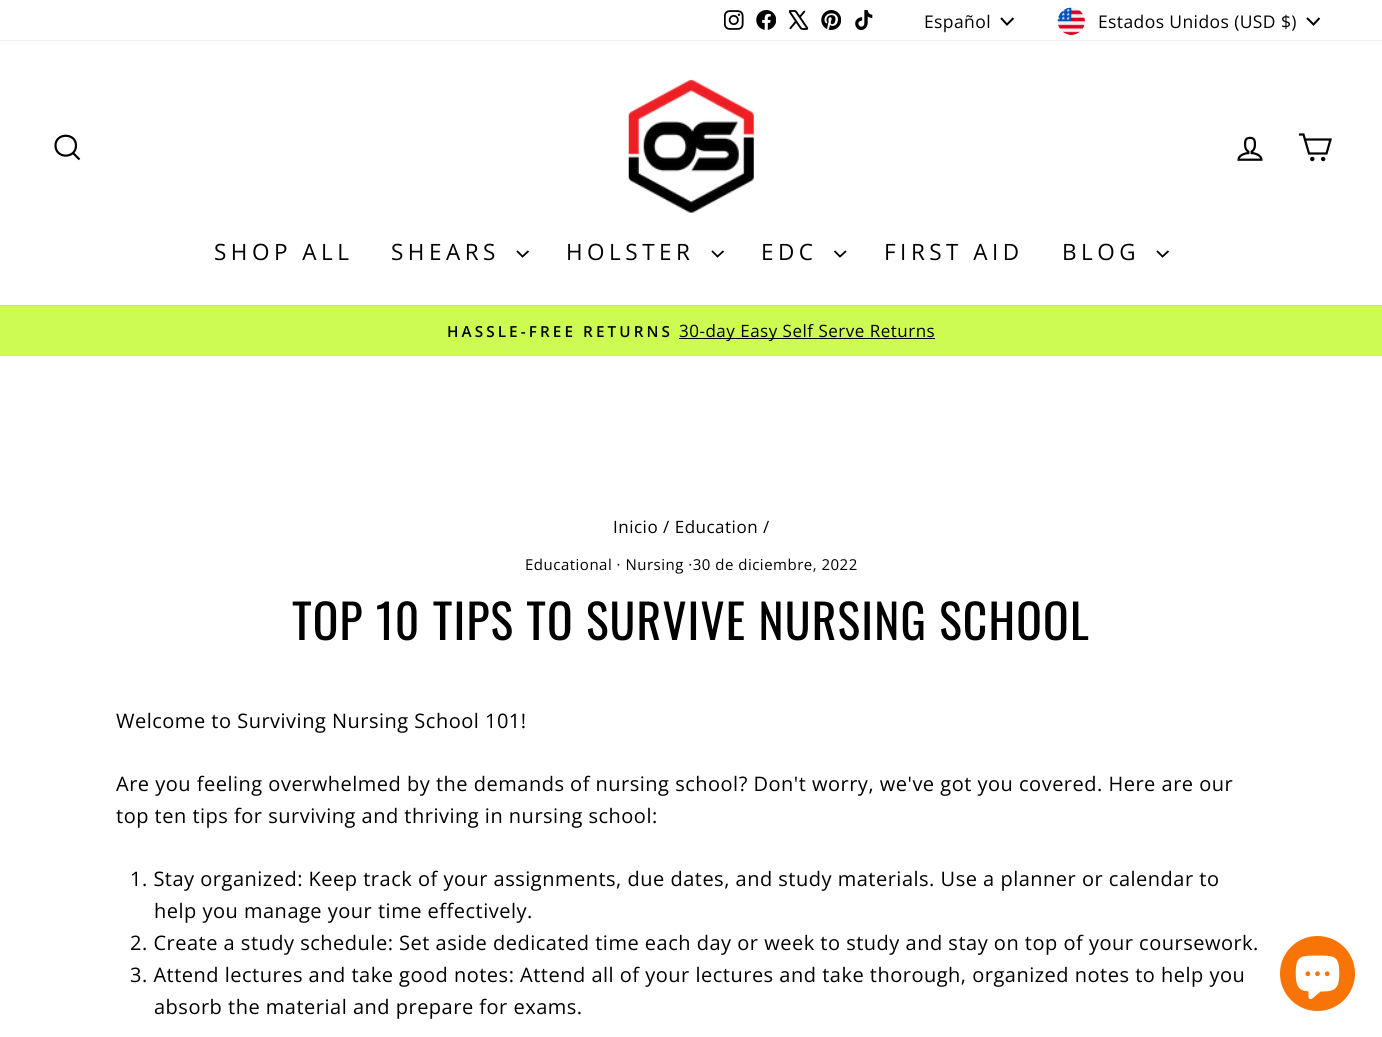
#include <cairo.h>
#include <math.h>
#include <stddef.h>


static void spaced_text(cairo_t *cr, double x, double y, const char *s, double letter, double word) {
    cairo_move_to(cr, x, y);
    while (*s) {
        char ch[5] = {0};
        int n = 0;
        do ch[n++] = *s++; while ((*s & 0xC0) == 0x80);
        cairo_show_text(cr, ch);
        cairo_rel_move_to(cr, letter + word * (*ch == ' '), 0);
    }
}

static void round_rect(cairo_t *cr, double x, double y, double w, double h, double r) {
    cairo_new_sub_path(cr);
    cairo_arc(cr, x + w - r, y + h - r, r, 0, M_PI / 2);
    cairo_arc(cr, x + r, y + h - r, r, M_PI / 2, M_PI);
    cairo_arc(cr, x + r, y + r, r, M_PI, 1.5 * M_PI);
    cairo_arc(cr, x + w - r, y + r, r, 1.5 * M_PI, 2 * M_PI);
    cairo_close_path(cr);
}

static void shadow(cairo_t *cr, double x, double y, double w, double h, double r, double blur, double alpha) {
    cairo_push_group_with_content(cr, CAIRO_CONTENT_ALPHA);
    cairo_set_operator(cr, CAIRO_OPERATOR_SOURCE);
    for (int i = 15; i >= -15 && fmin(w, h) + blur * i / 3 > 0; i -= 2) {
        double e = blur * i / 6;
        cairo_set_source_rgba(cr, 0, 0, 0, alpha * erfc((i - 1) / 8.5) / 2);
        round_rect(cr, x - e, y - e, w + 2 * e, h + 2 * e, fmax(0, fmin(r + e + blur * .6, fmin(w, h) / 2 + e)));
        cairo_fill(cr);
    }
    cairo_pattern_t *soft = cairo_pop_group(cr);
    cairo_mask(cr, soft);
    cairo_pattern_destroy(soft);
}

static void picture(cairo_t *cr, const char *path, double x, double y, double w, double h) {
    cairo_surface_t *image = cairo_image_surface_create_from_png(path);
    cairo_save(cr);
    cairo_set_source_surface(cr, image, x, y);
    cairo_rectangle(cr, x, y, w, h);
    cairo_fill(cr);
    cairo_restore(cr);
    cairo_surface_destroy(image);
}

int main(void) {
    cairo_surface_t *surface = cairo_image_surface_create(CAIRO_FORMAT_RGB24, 1382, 1037);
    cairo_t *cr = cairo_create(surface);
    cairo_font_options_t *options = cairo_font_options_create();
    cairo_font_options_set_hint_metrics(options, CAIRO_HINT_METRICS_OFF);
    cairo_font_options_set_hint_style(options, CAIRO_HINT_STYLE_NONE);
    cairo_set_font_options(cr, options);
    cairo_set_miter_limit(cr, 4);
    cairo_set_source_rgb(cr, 1, 1, 1);
    cairo_paint(cr);
    picture(cr, "img1.png", 724, 10, 20, 20);
    picture(cr, "img2.png", 756, 10, 20, 20);
    picture(cr, "img3.png", 789, 10, 20, 20);
    picture(cr, "img4.png", 821, 10, 20, 20);
    picture(cr, "img5.png", 855, 10, 18, 20);
    cairo_select_font_face(cr, "Open Sans", CAIRO_FONT_SLANT_NORMAL, CAIRO_FONT_WEIGHT_NORMAL);
    cairo_set_font_size(cr, 17.5);
    cairo_set_source_rgb(cr, 0, 0, 0);
    spaced_text(cr, 924, 28, "Español", 0.4, 0);
    cairo_new_path(cr);
    cairo_move_to(cr, 1001, 18);
    cairo_line_to(cr, 1007, 24.5);
    cairo_line_to(cr, 1013.5, 18);
    cairo_stroke(cr);
    picture(cr, "img6.png", 1057, 7, 28, 28);
    spaced_text(cr, 1098, 28, "Estados Unidos (USD $)", 0.4, 0);
    cairo_new_path(cr);
    cairo_move_to(cr, 1307, 18);
    cairo_line_to(cr, 1313.5, 24.5);
    cairo_line_to(cr, 1319.5, 18);
    cairo_stroke(cr);
    cairo_set_source_rgb(cr, 0.804, 0.984, 0.322);
    cairo_rectangle(cr, 0, 305, 1382, 51);
    cairo_fill(cr);
    cairo_set_source_rgb(cr, 0, 0, 0);
    shadow(cr, 0, 41, 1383, 264, 0, 0.5, 0.2);
    cairo_set_source_rgb(cr, 1, 1, 1);
    cairo_rectangle(cr, 0, 41, 1382, 264);
    cairo_fill(cr);
    cairo_new_path(cr);
    cairo_move_to(cr, 76, 145.5);
    cairo_curve_to(cr, 76, 159, 55.5, 159, 55.5, 145.5);
    cairo_curve_to(cr, 55.5, 132.5, 76, 132.5, 76, 145.5);
    cairo_close_path(cr);
    cairo_move_to(cr, 79.5, 159.5);
    cairo_line_to(cr, 73, 153);
    cairo_set_source_rgb(cr, 0, 0, 0);
    cairo_set_line_width(cr, 2.2);
    cairo_stroke(cr);
    picture(cr, "img7.png", 628, 79, 126, 134);
    picture(cr, "img8.png", 1237, 136, 26, 25);
    cairo_new_path(cr);
    cairo_move_to(cr, 1305, 139.5);
    cairo_line_to(cr, 1330.5, 139.5);
    cairo_line_to(cr, 1326.5, 153.5);
    cairo_line_to(cr, 1309, 153.5);
    cairo_line_to(cr, 1303.5, 134.5);
    cairo_line_to(cr, 1299, 134.5);
    cairo_stroke(cr);
    cairo_arc(cr, 1312.3, 159, 1.1, 0, 2 * M_PI);
    cairo_stroke(cr);
    cairo_arc(cr, 1323.2, 159, 1.1, 0, 2 * M_PI);
    cairo_stroke(cr);
    cairo_set_font_size(cr, 22.5);
    spaced_text(cr, 214, 260, "SHOP ALL", 4.5, 0);
    spaced_text(cr, 391, 260, "SHEARS", 4.5, 0);
    cairo_new_path(cr);
    cairo_move_to(cr, 517, 251);
    cairo_line_to(cr, 522.5, 256.5);
    cairo_line_to(cr, 528.5, 251);
    cairo_set_line_width(cr, 1.8);
    cairo_stroke(cr);
    spaced_text(cr, 566, 260, "HOLSTER", 4.5, 0);
    cairo_new_path(cr);
    cairo_move_to(cr, 712, 251);
    cairo_line_to(cr, 717.5, 256.5);
    cairo_line_to(cr, 723.5, 251);
    cairo_stroke(cr);
    spaced_text(cr, 761, 260, "EDC", 4.5, 0);
    cairo_new_path(cr);
    cairo_move_to(cr, 834.5, 251);
    cairo_line_to(cr, 840, 256.5);
    cairo_line_to(cr, 846, 251);
    cairo_stroke(cr);
    spaced_text(cr, 884, 260, "FIRST AID", 4.5, 0);
    spaced_text(cr, 1062, 260, "BLOG", 4.5, 0);
    cairo_new_path(cr);
    cairo_move_to(cr, 1157, 251);
    cairo_line_to(cr, 1162.5, 256.5);
    cairo_line_to(cr, 1168.5, 251);
    cairo_stroke(cr);
    cairo_select_font_face(cr, "Open Sans SemiBold", CAIRO_FONT_SLANT_NORMAL, CAIRO_FONT_WEIGHT_NORMAL);
    cairo_set_font_size(cr, 15.25);
    spaced_text(cr, 447, 337, "HASSLE-FREE RETURNS", 3.1, 0);
    cairo_rectangle(cr, 679, 338, 256, 1);
    cairo_fill(cr);
    cairo_select_font_face(cr, "Open Sans", CAIRO_FONT_SLANT_NORMAL, CAIRO_FONT_WEIGHT_NORMAL);
    cairo_set_font_size(cr, 17);
    spaced_text(cr, 679, 337, "30-day Easy Self Serve Returns", 0.5, 0);
    spaced_text(cr, 613, 533, "Inicio / Education /", 0.5, 0);
    cairo_set_font_size(cr, 15);
    spaced_text(cr, 525, 570, "Educational · Nursing ·30 de diciembre, 2022", 0.5, 0);
    cairo_select_font_face(cr, "Oswald", CAIRO_FONT_SLANT_NORMAL, CAIRO_FONT_WEIGHT_NORMAL);
    cairo_set_font_size(cr, 47.5);
    spaced_text(cr, 292, 640, "TOP 10 TIPS TO SURVIVE NURSING SCHOOL", 1.2, 0);
    cairo_select_font_face(cr, "Open Sans", CAIRO_FONT_SLANT_NORMAL, CAIRO_FONT_WEIGHT_NORMAL);
    cairo_set_font_size(cr, 20);
    spaced_text(cr, 116, 728, "Welcome to Surviving Nursing School 101!", 0.5, 0);
    spaced_text(cr, 116, 791, "Are you feeling overwhelmed by the demands of nursing school? Don't worry, we've got you covered. Here are our", 0.5, 0);
    spaced_text(cr, 116, 823, "top ten tips for surviving and thriving in nursing school:", 0.5, 0);
    spaced_text(cr, 130, 886, "1. Stay organized: Keep track of your assignments, due dates, and study materials. Use a planner or calendar to", 0.5, 0);
    spaced_text(cr, 154, 918, "help you manage your time effectively.", 0.5, 0);
    spaced_text(cr, 130, 950, "2. Create a study schedule: Set aside dedicated time each day or week to study and stay on top of your coursework.", 0.5, 0);
    spaced_text(cr, 130, 982, "3. Attend lectures and take good notes: Attend all of your lectures and take thorough, organized notes to help you", 0.5, 0);
    spaced_text(cr, 154, 1014, "absorb the material and prepare for exams.", 0.5, 0);
    cairo_set_source_rgb(cr, 0.969, 0.455, 0.031);
    cairo_new_path(cr);
    cairo_arc(cr, 1317.5, 973.5, 37.5, 0, 2 * M_PI);
    cairo_fill(cr);
    picture(cr, "img9.png", 1295, 955, 45, 45);
    cairo_surface_write_to_png(surface, "page.png");
    cairo_font_options_destroy(options);
    cairo_destroy(cr);
    cairo_surface_destroy(surface);
    return 0;
}
